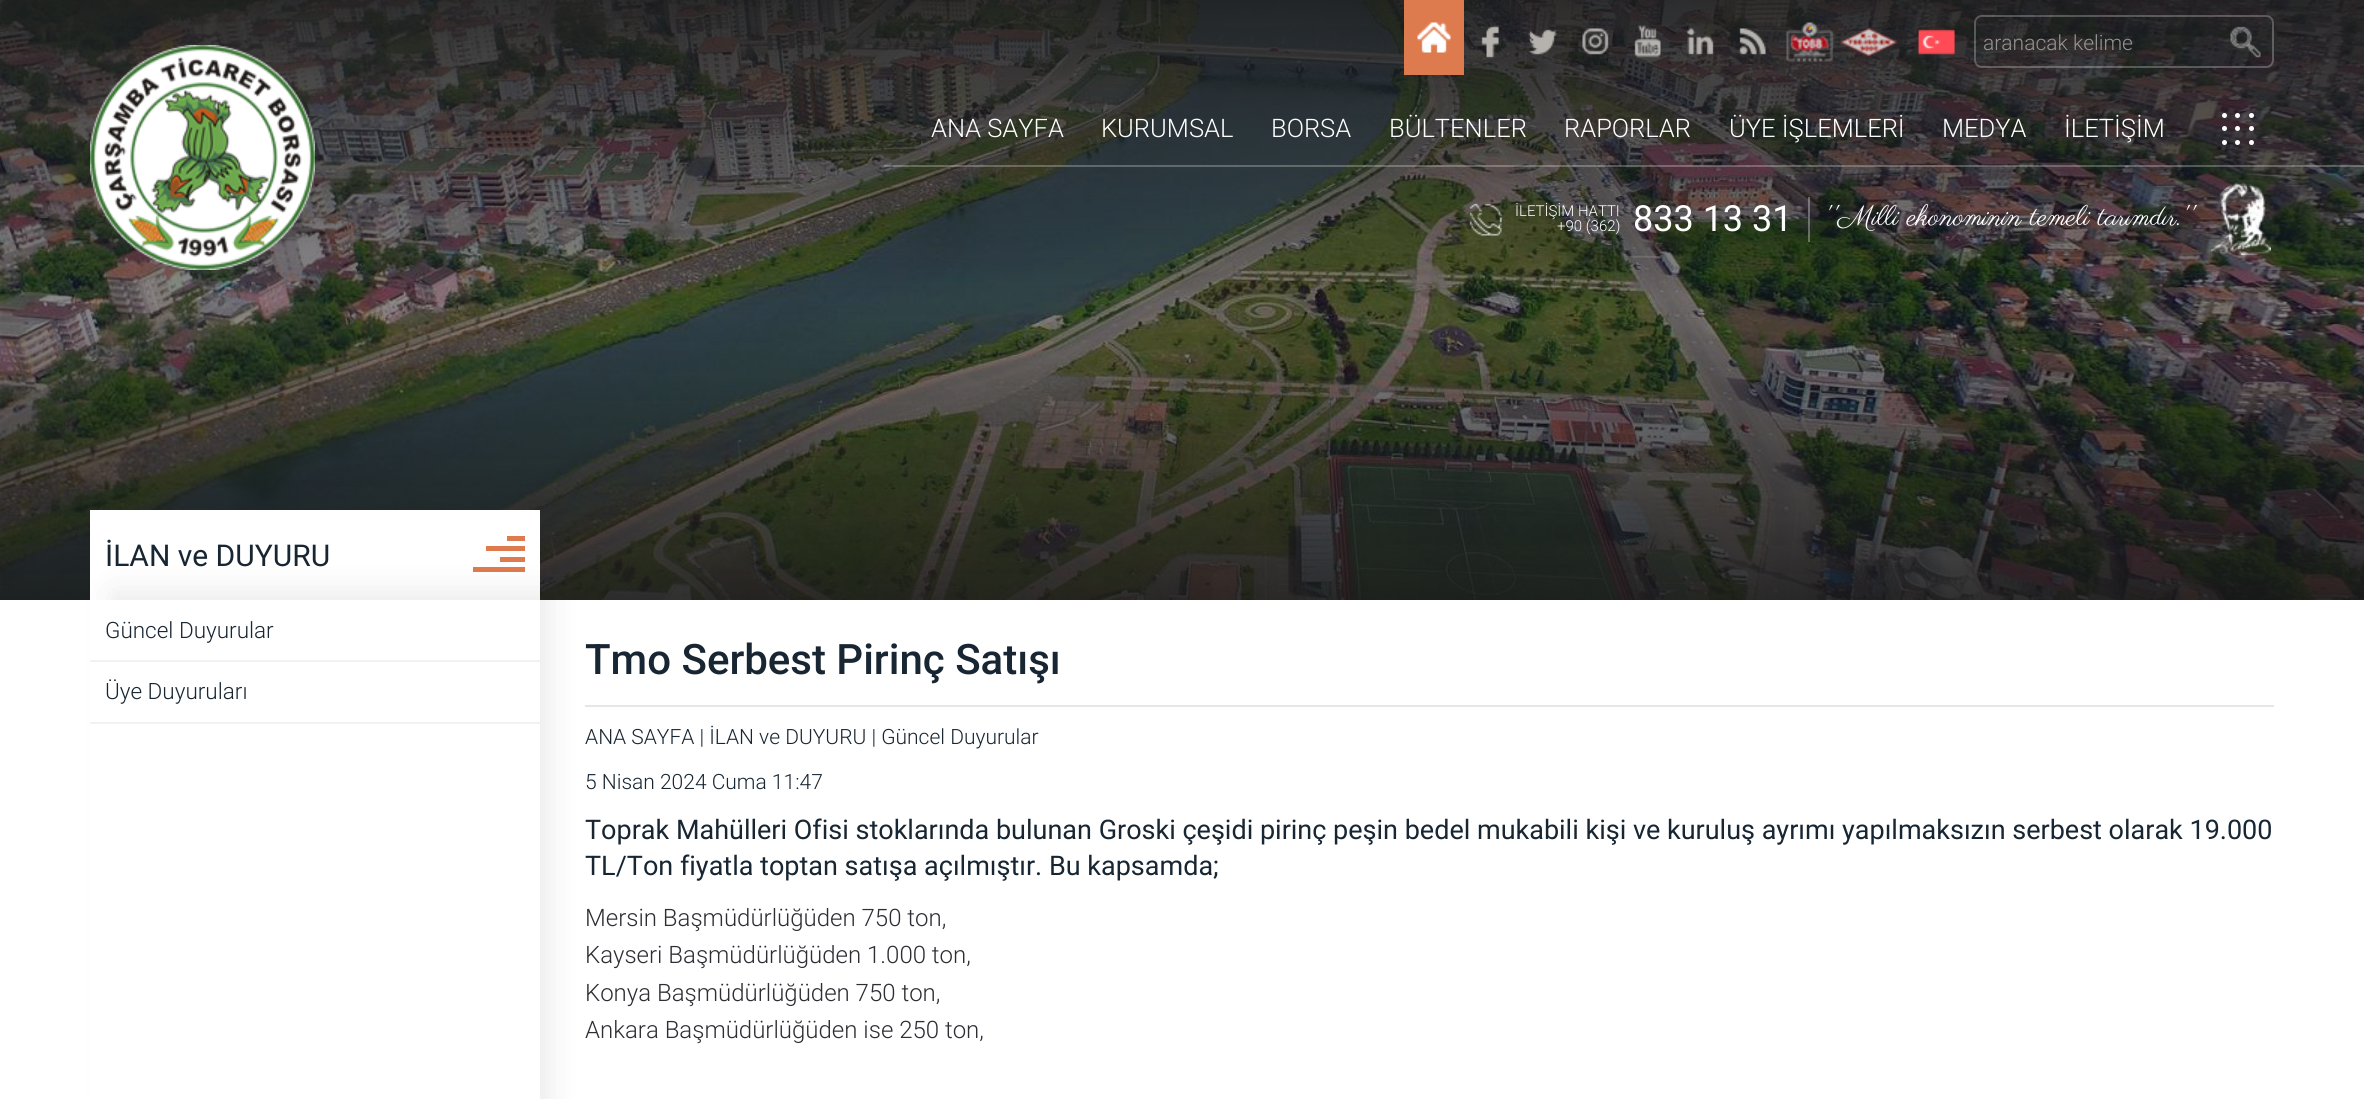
#include <cairo.h>
#include <math.h>
#include <stddef.h>


static void round_rect(cairo_t *cr, double x, double y, double w, double h, double r) {
    cairo_new_sub_path(cr);
    cairo_arc(cr, x + w - r, y + h - r, r, 0, M_PI / 2);
    cairo_arc(cr, x + r, y + h - r, r, M_PI / 2, M_PI);
    cairo_arc(cr, x + r, y + r, r, M_PI, 1.5 * M_PI);
    cairo_arc(cr, x + w - r, y + r, r, 1.5 * M_PI, 2 * M_PI);
    cairo_close_path(cr);
}

static void shadow(cairo_t *cr, double x, double y, double w, double h, double r, double blur, double alpha) {
    cairo_push_group_with_content(cr, CAIRO_CONTENT_ALPHA);
    cairo_set_operator(cr, CAIRO_OPERATOR_SOURCE);
    for (int i = 15; i >= -15 && fmin(w, h) + blur * i / 3 > 0; i -= 2) {
        double e = blur * i / 6;
        cairo_set_source_rgba(cr, 0, 0, 0, alpha * erfc((i - 1) / 8.5) / 2);
        round_rect(cr, x - e, y - e, w + 2 * e, h + 2 * e, fmax(0, fmin(r + e + blur * .6, fmin(w, h) / 2 + e)));
        cairo_fill(cr);
    }
    cairo_pattern_t *soft = cairo_pop_group(cr);
    cairo_mask(cr, soft);
    cairo_pattern_destroy(soft);
}

static void picture(cairo_t *cr, const char *path, double x, double y, double w, double h) {
    cairo_surface_t *image = cairo_image_surface_create_from_png(path);
    cairo_save(cr);
    cairo_set_source_surface(cr, image, x, y);
    cairo_rectangle(cr, x, y, w, h);
    cairo_fill(cr);
    cairo_restore(cr);
    cairo_surface_destroy(image);
}

int main(void) {
    cairo_surface_t *surface = cairo_image_surface_create(CAIRO_FORMAT_RGB24, 2364, 1099);
    cairo_t *cr = cairo_create(surface);
    cairo_font_options_t *options = cairo_font_options_create();
    cairo_font_options_set_hint_metrics(options, CAIRO_HINT_METRICS_OFF);
    cairo_font_options_set_hint_style(options, CAIRO_HINT_STYLE_NONE);
    cairo_set_font_options(cr, options);
    cairo_set_miter_limit(cr, 4);
    cairo_set_source_rgb(cr, 1, 1, 1);
    cairo_paint(cr);
    picture(cr, "img15.png", 0, 0, 2364, 600);
    cairo_set_source_rgb(cr, 0.871, 0.482, 0.306);
    cairo_rectangle(cr, 1404, 0, 60, 75);
    cairo_fill(cr);
    picture(cr, "img1.png", 1417, 22, 34, 31);
    picture(cr, "img2.png", 1481, 25, 18, 33);
    picture(cr, "img3.png", 1528, 29, 30, 26);
    picture(cr, "img4.png", 1582, 28, 27, 27);
    picture(cr, "img5.png", 1634, 25, 27, 33);
    picture(cr, "img6.png", 1687, 28, 27, 27);
    picture(cr, "img7.png", 1739, 28, 27, 27);
    picture(cr, "img8.png", 1786, 22, 48, 40);
    picture(cr, "img9.png", 1840, 27, 58, 31);
    picture(cr, "img10.png", 1918, 29, 37, 26);
    round_rect(cr, 1975, 16, 298, 51, 7);
    cairo_set_source_rgba(cr, 1, 1, 1, 0.25);
    cairo_stroke(cr);
    cairo_select_font_face(cr, "Roboto Light", CAIRO_FONT_SLANT_NORMAL, CAIRO_FONT_WEIGHT_NORMAL);
    cairo_set_font_size(cr, 21);
    cairo_set_source_rgb(cr, 0.584, 0.58, 0.58);
    cairo_move_to(cr, 1983, 50);
    cairo_show_text(cr, "aranacak kelime");
    picture(cr, "img11.png", 2230, 26, 31, 32);
    picture(cr, "img12.png", 90, 45, 225, 225);
    cairo_set_source_rgba(cr, 1, 1, 1, 0.25);
    cairo_rectangle(cr, 884, 165, 1480, 2);
    cairo_fill(cr);
    cairo_set_font_size(cr, 25.5);
    cairo_set_source_rgb(cr, 1, 1, 1);
    cairo_move_to(cr, 931, 137);
    cairo_show_text(cr, "ANA SAYFA");
    cairo_move_to(cr, 1101, 137);
    cairo_show_text(cr, "KURUMSAL");
    cairo_move_to(cr, 1271, 137);
    cairo_show_text(cr, "BORSA");
    cairo_move_to(cr, 1389, 137);
    cairo_show_text(cr, "BÜLTENLER");
    cairo_move_to(cr, 1564, 137);
    cairo_show_text(cr, "RAPORLAR");
    cairo_move_to(cr, 1729, 137);
    cairo_show_text(cr, "ÜYE İŞLEMLERİ");
    cairo_move_to(cr, 1942, 137);
    cairo_show_text(cr, "MEDYA");
    cairo_move_to(cr, 2064, 137);
    cairo_show_text(cr, "İLETİŞİM");
    cairo_new_path(cr);
    cairo_arc(cr, 2224.5, 115.5, 2.5, 0, 2 * M_PI);
    cairo_fill(cr);
    cairo_arc(cr, 2237.5, 115.5, 2.5, 0, 2 * M_PI);
    cairo_fill(cr);
    cairo_arc(cr, 2251.5, 115.5, 2.5, 0, 2 * M_PI);
    cairo_fill(cr);
    cairo_arc(cr, 2224.5, 128.5, 2.5, 0, 2 * M_PI);
    cairo_fill(cr);
    cairo_arc(cr, 2237.5, 128.5, 2.5, 0, 2 * M_PI);
    cairo_fill(cr);
    cairo_arc(cr, 2251.5, 128.5, 2.5, 0, 2 * M_PI);
    cairo_fill(cr);
    cairo_arc(cr, 2224.5, 142.5, 2.5, 0, 2 * M_PI);
    cairo_fill(cr);
    cairo_arc(cr, 2237.5, 142.5, 2.5, 0, 2 * M_PI);
    cairo_fill(cr);
    cairo_arc(cr, 2251.5, 142.5, 2.5, 0, 2 * M_PI);
    cairo_fill(cr);
    picture(cr, "img13.png", 1469, 203, 33, 33);
    cairo_set_font_size(cr, 15);
    cairo_move_to(cr, 1515, 216);
    cairo_show_text(cr, "İLETİŞİM HATTI");
    cairo_move_to(cr, 1557, 231);
    cairo_show_text(cr, "+90 (362)");
    cairo_select_font_face(cr, "Roboto", CAIRO_FONT_SLANT_NORMAL, CAIRO_FONT_WEIGHT_NORMAL);
    cairo_set_font_size(cr, 36);
    cairo_move_to(cr, 1633, 231);
    cairo_show_text(cr, "833 13 31");
    cairo_set_source_rgba(cr, 1, 1, 1, 0.31);
    cairo_rectangle(cr, 1808, 197, 2, 45);
    cairo_fill(cr);
    cairo_select_font_face(cr, "Parisienne", CAIRO_FONT_SLANT_NORMAL, CAIRO_FONT_WEIGHT_NORMAL);
    cairo_set_font_size(cr, 28.5);
    cairo_set_source_rgb(cr, 1, 1, 1);
    cairo_move_to(cr, 1824, 225);
    cairo_show_text(cr, "''Milli ekonominin temeli tarımdır.''");
    picture(cr, "img14.png", 2211, 182, 60, 74);
    cairo_rectangle(cr, 90, 510, 450, 90);
    cairo_fill(cr);
    cairo_select_font_face(cr, "Roboto", CAIRO_FONT_SLANT_NORMAL, CAIRO_FONT_WEIGHT_NORMAL);
    cairo_set_font_size(cr, 30);
    cairo_set_source_rgb(cr, 0.09, 0.149, 0.196);
    cairo_move_to(cr, 105, 566);
    cairo_show_text(cr, "İLAN ve DUYURU");
    cairo_set_source_rgb(cr, 0.871, 0.482, 0.306);
    cairo_rectangle(cr, 507, 536, 18, 5);
    cairo_fill(cr);
    cairo_rectangle(cr, 486, 546, 39, 5);
    cairo_fill(cr);
    cairo_rectangle(cr, 500, 557, 25, 5);
    cairo_fill(cr);
    cairo_rectangle(cr, 473, 567, 52, 5);
    cairo_fill(cr);
    cairo_set_source_rgb(cr, 0.894, 0.902, 0.91);
    cairo_rectangle(cr, 585, 705, 1689, 2);
    cairo_fill(cr);
    cairo_save(cr);
    cairo_set_fill_rule(cr, CAIRO_FILL_RULE_EVEN_ODD);
    cairo_new_path(cr);
    cairo_move_to(cr, 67, 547);
    cairo_line_to(cr, 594, 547);
    cairo_line_to(cr, 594, 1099);
    cairo_line_to(cr, 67, 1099);
    cairo_close_path(cr);
    cairo_move_to(cr, 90, 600);
    cairo_line_to(cr, 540, 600);
    cairo_line_to(cr, 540, 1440);
    cairo_line_to(cr, 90, 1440);
    cairo_close_path(cr);
    cairo_clip(cr);
    cairo_set_source_rgb(cr, 0.102, 0.102, 0.102);
    shadow(cr, 113, 593, 435, 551, 0, 15, 0.1);
    cairo_restore(cr);
    cairo_set_source_rgb(cr, 0.945, 0.949, 0.953);
    cairo_rectangle(cr, 90, 660, 450, 2);
    cairo_fill(cr);
    cairo_select_font_face(cr, "Roboto Light", CAIRO_FONT_SLANT_NORMAL, CAIRO_FONT_WEIGHT_NORMAL);
    cairo_set_font_size(cr, 22.5);
    cairo_set_source_rgb(cr, 0.09, 0.149, 0.196);
    cairo_move_to(cr, 105, 638);
    cairo_show_text(cr, "Güncel Duyurular");
    cairo_set_source_rgb(cr, 0.945, 0.949, 0.953);
    cairo_rectangle(cr, 90, 722, 450, 2);
    cairo_fill(cr);
    cairo_set_source_rgb(cr, 0.09, 0.149, 0.196);
    cairo_move_to(cr, 105, 699);
    cairo_show_text(cr, "Üye Duyuruları");
    cairo_select_font_face(cr, "Roboto Medium", CAIRO_FONT_SLANT_NORMAL, CAIRO_FONT_WEIGHT_NORMAL);
    cairo_set_font_size(cr, 42);
    cairo_move_to(cr, 585, 674);
    cairo_show_text(cr, "Tmo Serbest Pirinç Satışı");
    cairo_select_font_face(cr, "Roboto Light", CAIRO_FONT_SLANT_NORMAL, CAIRO_FONT_WEIGHT_NORMAL);
    cairo_set_font_size(cr, 21);
    cairo_move_to(cr, 585, 744);
    cairo_show_text(cr, "ANA SAYFA | İLAN ve DUYURU | Güncel Duyurular");
    cairo_move_to(cr, 585, 789);
    cairo_show_text(cr, "5 Nisan 2024 Cuma 11:47");
    cairo_select_font_face(cr, "Roboto", CAIRO_FONT_SLANT_NORMAL, CAIRO_FONT_WEIGHT_NORMAL);
    cairo_set_font_size(cr, 27);
    cairo_move_to(cr, 585, 839);
    cairo_show_text(cr, "Toprak Mahülleri Ofisi stoklarında bulunan Groski çeşidi pirinç peşin bedel mukabili kişi ve kuruluş ayrımı yapılmaksızın serbest olarak 19.000");
    cairo_move_to(cr, 585, 875);
    cairo_show_text(cr, "TL/Ton fiyatla toptan satışa açılmıştır. Bu kapsamda;");
    cairo_select_font_face(cr, "Roboto Light", CAIRO_FONT_SLANT_NORMAL, CAIRO_FONT_WEIGHT_NORMAL);
    cairo_set_font_size(cr, 24);
    cairo_set_source_rgb(cr, 0.176, 0.18, 0.2);
    cairo_move_to(cr, 585, 926);
    cairo_show_text(cr, "Mersin Başmüdürlüğüden 750 ton,");
    cairo_move_to(cr, 585, 963);
    cairo_show_text(cr, "Kayseri Başmüdürlüğüden 1.000 ton,");
    cairo_move_to(cr, 585, 1001);
    cairo_show_text(cr, "Konya Başmüdürlüğüden 750 ton,");
    cairo_move_to(cr, 585, 1038);
    cairo_show_text(cr, "Ankara Başmüdürlüğüden ise 250 ton,");
    cairo_surface_write_to_png(surface, "page.png");
    cairo_font_options_destroy(options);
    cairo_destroy(cr);
    cairo_surface_destroy(surface);
    return 0;
}
